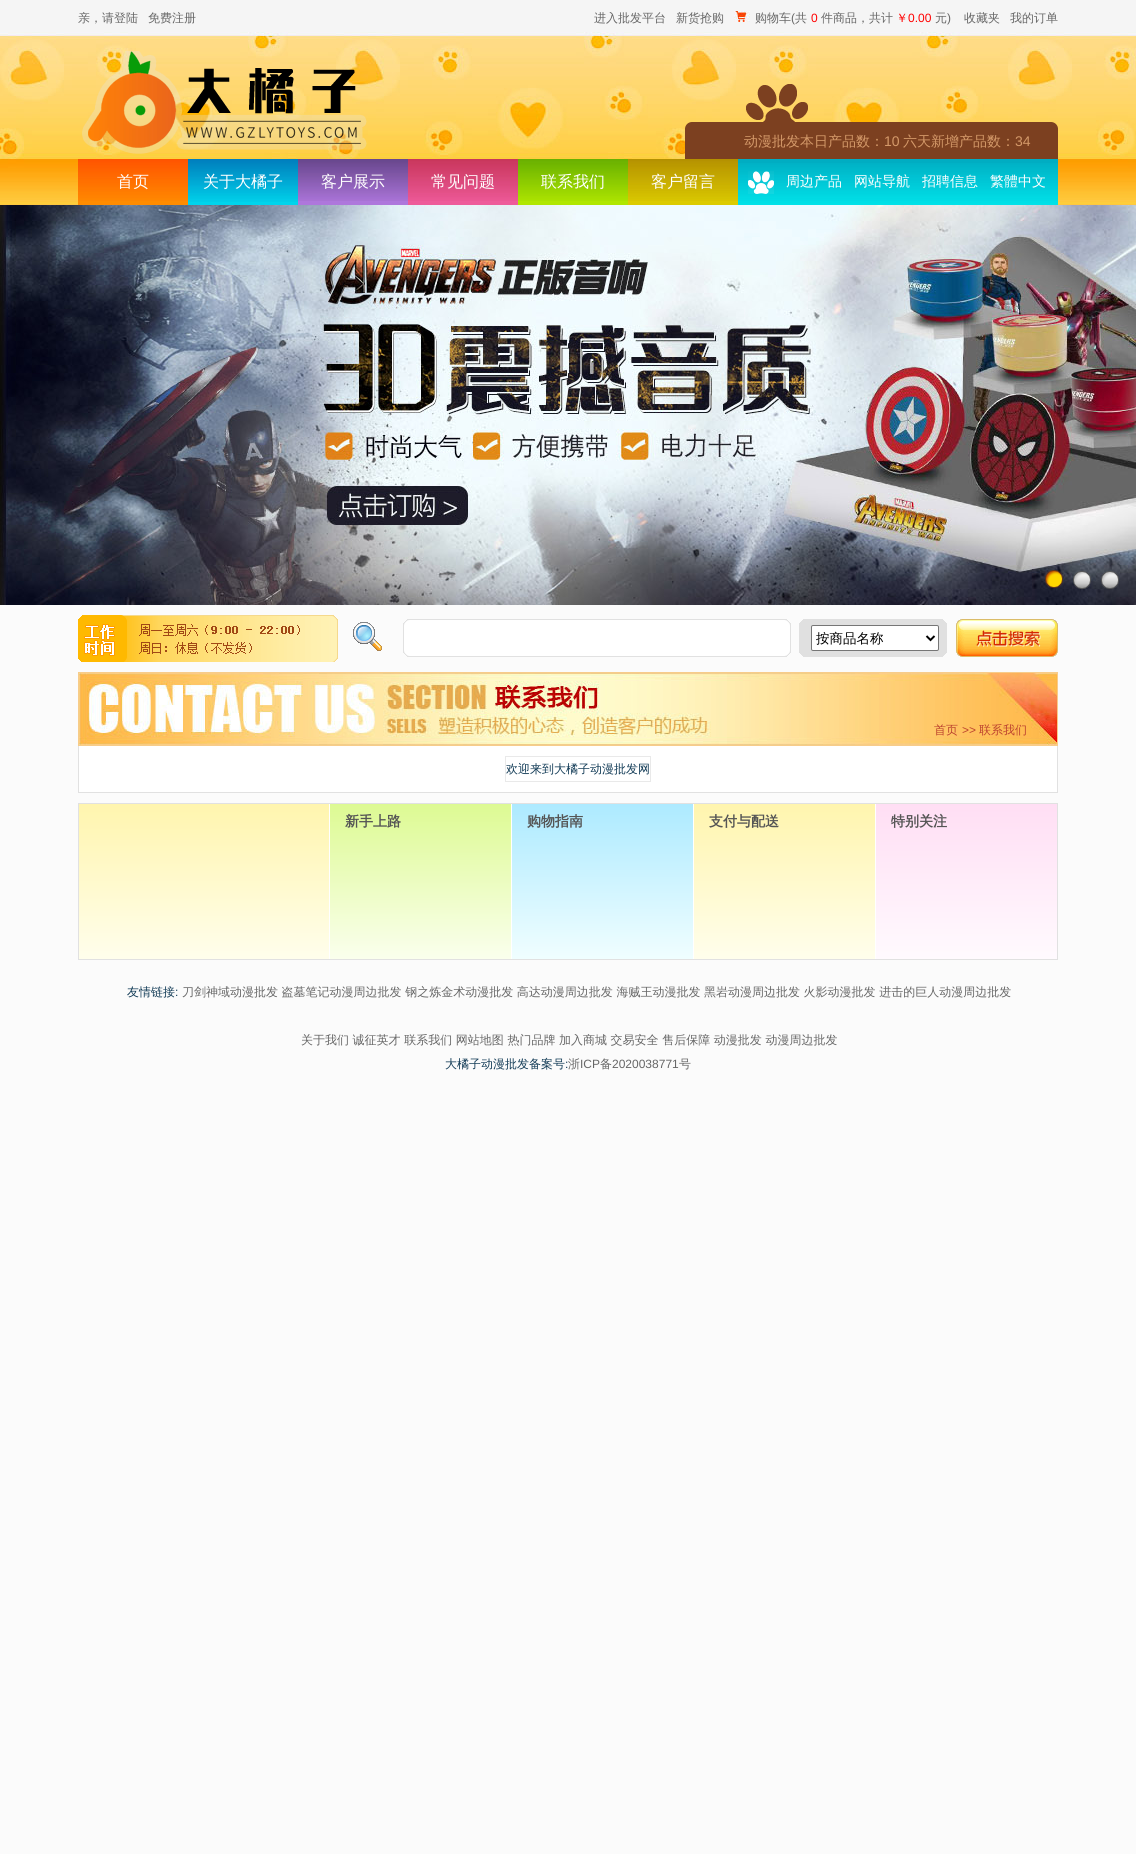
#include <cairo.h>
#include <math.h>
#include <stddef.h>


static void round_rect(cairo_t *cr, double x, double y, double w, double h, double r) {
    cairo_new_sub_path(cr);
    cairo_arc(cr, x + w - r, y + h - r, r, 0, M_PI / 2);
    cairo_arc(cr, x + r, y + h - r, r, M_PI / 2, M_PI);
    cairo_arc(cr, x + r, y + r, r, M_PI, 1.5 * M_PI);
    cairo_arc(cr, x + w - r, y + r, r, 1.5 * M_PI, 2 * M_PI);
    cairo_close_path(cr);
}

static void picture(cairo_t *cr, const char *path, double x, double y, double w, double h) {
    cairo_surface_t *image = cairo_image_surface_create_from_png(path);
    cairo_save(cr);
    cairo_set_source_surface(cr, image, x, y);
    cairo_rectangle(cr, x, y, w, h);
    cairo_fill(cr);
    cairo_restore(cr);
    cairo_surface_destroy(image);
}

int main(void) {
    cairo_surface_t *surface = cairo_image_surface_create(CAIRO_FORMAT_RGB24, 1136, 1854);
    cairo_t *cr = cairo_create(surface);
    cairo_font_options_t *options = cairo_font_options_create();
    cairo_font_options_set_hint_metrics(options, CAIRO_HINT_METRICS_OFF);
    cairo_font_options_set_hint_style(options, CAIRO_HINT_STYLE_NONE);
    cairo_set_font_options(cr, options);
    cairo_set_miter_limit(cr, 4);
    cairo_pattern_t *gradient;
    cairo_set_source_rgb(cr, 0.984, 0.984, 0.984);
    cairo_paint(cr);
    picture(cr, "img1.png", 0, 0, 1136, 205);
    cairo_select_font_face(cr, "WenQuanYi Zen Hei Medium", CAIRO_FONT_SLANT_NORMAL, CAIRO_FONT_WEIGHT_NORMAL);
    cairo_set_font_size(cr, 12);
    cairo_set_source_rgb(cr, 0.4, 0.4, 0.4);
    cairo_move_to(cr, 78, 22);
    cairo_show_text(cr, "亲，请登陆");
    cairo_move_to(cr, 148, 22);
    cairo_show_text(cr, "免费注册");
    cairo_move_to(cr, 594, 22);
    cairo_show_text(cr, "进入批发平台");
    cairo_move_to(cr, 676, 22);
    cairo_show_text(cr, "新货抢购");
    picture(cr, "img2.png", 734, 11, 16, 11);
    cairo_move_to(cr, 755, 22);
    cairo_show_text(cr, "购物车");
    cairo_select_font_face(cr, "Liberation Sans", CAIRO_FONT_SLANT_NORMAL, CAIRO_FONT_WEIGHT_NORMAL);
    cairo_move_to(cr, 791, 22);
    cairo_show_text(cr, "(");
    cairo_select_font_face(cr, "WenQuanYi Zen Hei Medium", CAIRO_FONT_SLANT_NORMAL, CAIRO_FONT_WEIGHT_NORMAL);
    cairo_move_to(cr, 795, 22);
    cairo_show_text(cr, "共");
    cairo_select_font_face(cr, "Liberation Sans", CAIRO_FONT_SLANT_NORMAL, CAIRO_FONT_WEIGHT_NORMAL);
    cairo_set_source_rgb(cr, 1, 0, 0);
    cairo_move_to(cr, 811, 22);
    cairo_show_text(cr, "0");
    cairo_select_font_face(cr, "WenQuanYi Zen Hei Medium", CAIRO_FONT_SLANT_NORMAL, CAIRO_FONT_WEIGHT_NORMAL);
    cairo_set_source_rgb(cr, 0.4, 0.4, 0.4);
    cairo_move_to(cr, 821, 22);
    cairo_show_text(cr, "件商品，共计");
    cairo_set_source_rgb(cr, 1, 0, 0);
    cairo_move_to(cr, 896, 22);
    cairo_show_text(cr, "￥");
    cairo_select_font_face(cr, "Liberation Sans", CAIRO_FONT_SLANT_NORMAL, CAIRO_FONT_WEIGHT_NORMAL);
    cairo_move_to(cr, 908, 22);
    cairo_show_text(cr, "0.00");
    cairo_select_font_face(cr, "WenQuanYi Zen Hei Medium", CAIRO_FONT_SLANT_NORMAL, CAIRO_FONT_WEIGHT_NORMAL);
    cairo_set_source_rgb(cr, 0.4, 0.4, 0.4);
    cairo_move_to(cr, 935, 22);
    cairo_show_text(cr, "元");
    cairo_select_font_face(cr, "Liberation Sans", CAIRO_FONT_SLANT_NORMAL, CAIRO_FONT_WEIGHT_NORMAL);
    cairo_move_to(cr, 947, 22);
    cairo_show_text(cr, ")");
    cairo_select_font_face(cr, "WenQuanYi Zen Hei Medium", CAIRO_FONT_SLANT_NORMAL, CAIRO_FONT_WEIGHT_NORMAL);
    cairo_move_to(cr, 964, 22);
    cairo_show_text(cr, "收藏夹");
    cairo_move_to(cr, 1010, 22);
    cairo_show_text(cr, "我的订单");
    picture(cr, "img3.png", 82, 51, 285, 103);
    picture(cr, "img4.png", 685, 84, 373, 75);
    cairo_set_font_size(cr, 14);
    cairo_set_source_rgb(cr, 0.831, 0.6, 0.412);
    cairo_move_to(cr, 744, 146);
    cairo_show_text(cr, "动漫批发本日产品数：");
    cairo_select_font_face(cr, "Liberation Sans", CAIRO_FONT_SLANT_NORMAL, CAIRO_FONT_WEIGHT_NORMAL);
    cairo_move_to(cr, 884, 146);
    cairo_show_text(cr, "10");
    cairo_select_font_face(cr, "WenQuanYi Zen Hei Medium", CAIRO_FONT_SLANT_NORMAL, CAIRO_FONT_WEIGHT_NORMAL);
    cairo_move_to(cr, 903, 146);
    cairo_show_text(cr, "六天新增产品数：");
    cairo_select_font_face(cr, "Liberation Sans", CAIRO_FONT_SLANT_NORMAL, CAIRO_FONT_WEIGHT_NORMAL);
    cairo_move_to(cr, 1015, 146);
    cairo_show_text(cr, "34");
    cairo_set_source_rgb(cr, 0, 0.678, 0.761);
    cairo_rectangle(cr, 738, 159, 320, 4);
    cairo_fill(cr);
    picture(cr, "img5.png", 738, 163, 320, 42);
    cairo_set_source_rgb(cr, 1, 0.549, 0);
    cairo_rectangle(cr, 78, 201, 110, 4);
    cairo_fill(cr);
    picture(cr, "img6.png", 78, 159, 110, 42);
    cairo_select_font_face(cr, "WenQuanYi Zen Hei Medium", CAIRO_FONT_SLANT_NORMAL, CAIRO_FONT_WEIGHT_NORMAL);
    cairo_set_font_size(cr, 16);
    cairo_set_source_rgb(cr, 1, 1, 1);
    cairo_move_to(cr, 117, 187);
    cairo_show_text(cr, "首页");
    cairo_set_source_rgb(cr, 0, 0.831, 0.922);
    cairo_rectangle(cr, 188, 202, 110, 3);
    cairo_fill(cr);
    picture(cr, "img7.png", 188, 159, 110, 43);
    cairo_set_source_rgb(cr, 1, 1, 1);
    cairo_move_to(cr, 203, 187);
    cairo_show_text(cr, "关于大橘子");
    cairo_set_source_rgb(cr, 0.682, 0.467, 0.863);
    cairo_rectangle(cr, 298, 201, 110, 4);
    cairo_fill(cr);
    picture(cr, "img8.png", 298, 159, 110, 42);
    cairo_set_source_rgb(cr, 1, 1, 1);
    cairo_move_to(cr, 321, 187);
    cairo_show_text(cr, "客户展示");
    cairo_set_source_rgb(cr, 0.933, 0.357, 0.604);
    cairo_rectangle(cr, 408, 201, 110, 4);
    cairo_fill(cr);
    picture(cr, "img9.png", 408, 159, 110, 42);
    cairo_set_source_rgb(cr, 1, 1, 1);
    cairo_move_to(cr, 431, 187);
    cairo_show_text(cr, "常见问题");
    cairo_set_source_rgb(cr, 0.69, 0.906, 0);
    cairo_rectangle(cr, 518, 201, 110, 4);
    cairo_fill(cr);
    picture(cr, "img10.png", 518, 159, 110, 42);
    cairo_set_source_rgb(cr, 1, 1, 1);
    cairo_move_to(cr, 541, 187);
    cairo_show_text(cr, "联系我们");
    cairo_set_source_rgb(cr, 0.863, 0.796, 0);
    cairo_rectangle(cr, 628, 201, 110, 4);
    cairo_fill(cr);
    picture(cr, "img11.png", 628, 159, 110, 42);
    cairo_set_source_rgb(cr, 1, 1, 1);
    cairo_move_to(cr, 651, 187);
    cairo_show_text(cr, "客户留言");
    picture(cr, "img12.png", 748, 171, 26, 23);
    cairo_set_font_size(cr, 14);
    cairo_move_to(cr, 786, 186);
    cairo_show_text(cr, "周边产品");
    cairo_move_to(cr, 854, 186);
    cairo_show_text(cr, "网站导航");
    cairo_move_to(cr, 922, 186);
    cairo_show_text(cr, "招聘信息");
    cairo_move_to(cr, 990, 186);
    cairo_show_text(cr, "繁體中文");
    picture(cr, "img13.png", 0, 205, 1136, 400);
    picture(cr, "img14.png", 1045, 570, 18, 18);
    picture(cr, "img15.png", 1073, 571, 18, 18);
    picture(cr, "img16.png", 1101, 571, 18, 18);
    picture(cr, "img17.png", 78, 615, 869, 47);
    round_rect(cr, 811.5, 625.5, 127, 25, 1.5);
    cairo_fill_preserve(cr);
    cairo_set_source_rgb(cr, 0.463, 0.463, 0.463);
    cairo_set_line_width(cr, 1);
    cairo_stroke(cr);
    cairo_new_path(cr);
    cairo_move_to(cr, 926.5, 636);
    cairo_line_to(cr, 930.5, 640);
    cairo_line_to(cr, 934.5, 636);
    cairo_set_source_rgb(cr, 0, 0, 0);
    cairo_set_line_width(cr, 2);
    cairo_stroke(cr);
    cairo_set_font_size(cr, 13.5);
    cairo_move_to(cr, 816, 643);
    cairo_show_text(cr, "按商品名称");
    picture(cr, "img18.png", 956, 619, 102, 38);
    picture(cr, "img19.png", 79, 673, 978, 72);
    cairo_rectangle(cr, 78.5, 672.5, 979, 73);
    cairo_set_source_rgb(cr, 0.965, 0.8, 0.541);
    cairo_set_line_width(cr, 1);
    cairo_stroke(cr);
    cairo_set_font_size(cr, 12);
    cairo_set_source_rgb(cr, 0.741, 0.267, 0.184);
    cairo_move_to(cr, 934, 734);
    cairo_show_text(cr, "首页");
    cairo_select_font_face(cr, "Liberation Sans", CAIRO_FONT_SLANT_NORMAL, CAIRO_FONT_WEIGHT_NORMAL);
    cairo_move_to(cr, 962, 734);
    cairo_show_text(cr, ">>");
    cairo_select_font_face(cr, "WenQuanYi Zen Hei Medium", CAIRO_FONT_SLANT_NORMAL, CAIRO_FONT_WEIGHT_NORMAL);
    cairo_move_to(cr, 979, 734);
    cairo_show_text(cr, "联系我们");
    cairo_set_source_rgb(cr, 1, 1, 1);
    cairo_rectangle(cr, 79, 746, 978, 46);
    cairo_fill(cr);
    cairo_set_source_rgb(cr, 0.882, 0.882, 0.882);
    cairo_rectangle(cr, 1057, 746, 1, 47);
    cairo_fill(cr);
    cairo_rectangle(cr, 78, 792, 980, 1);
    cairo_fill(cr);
    cairo_rectangle(cr, 78, 746, 1, 47);
    cairo_fill(cr);
    cairo_set_source_rgb(cr, 0.914, 0.914, 0.914);
    cairo_rectangle(cr, 505, 756, 146, 26);
    cairo_fill(cr);
    cairo_set_source_rgb(cr, 1, 1, 1);
    cairo_rectangle(cr, 506, 757, 144, 24);
    cairo_fill(cr);
    cairo_set_source_rgb(cr, 0.075, 0.235, 0.341);
    cairo_move_to(cr, 506, 773);
    cairo_show_text(cr, "欢迎来到大橘子动漫批发网");
    gradient = cairo_pattern_create_linear(79, 804, 79, 959);
    cairo_pattern_add_color_stop_rgba(gradient, 0, 1, 0.961, 0.682, 1);
    cairo_pattern_add_color_stop_rgba(gradient, 1, 1, 0.996, 0.925, 1);
    cairo_set_source(cr, gradient);
    cairo_pattern_destroy(gradient);
    cairo_rectangle(cr, 79, 804, 796, 155);
    cairo_fill(cr);
    cairo_rectangle(cr, 78.5, 803.5, 979, 156);
    cairo_set_source_rgb(cr, 0.882, 0.882, 0.882);
    cairo_stroke(cr);
    gradient = cairo_pattern_create_linear(330, 804, 330, 959);
    cairo_pattern_add_color_stop_rgba(gradient, 0, 0.867, 0.98, 0.576, 1);
    cairo_pattern_add_color_stop_rgba(gradient, 1, 0.98, 1, 0.929, 1);
    cairo_set_source(cr, gradient);
    cairo_pattern_destroy(gradient);
    cairo_rectangle(cr, 330, 804, 181, 155);
    cairo_fill(cr);
    cairo_set_source_rgb(cr, 1, 1, 1);
    cairo_rectangle(cr, 329, 804, 1, 155);
    cairo_fill(cr);
    cairo_select_font_face(cr, "WenQuanYi Zen Hei", CAIRO_FONT_SLANT_NORMAL, CAIRO_FONT_WEIGHT_BOLD);
    cairo_set_font_size(cr, 14);
    cairo_set_source_rgb(cr, 0.333, 0.333, 0.333);
    cairo_move_to(cr, 345, 826);
    cairo_show_text(cr, "新手上路");
    gradient = cairo_pattern_create_linear(512, 804, 512, 959);
    cairo_pattern_add_color_stop_rgba(gradient, 0, 0.678, 0.918, 1, 1);
    cairo_pattern_add_color_stop_rgba(gradient, 1, 0.941, 0.996, 1, 1);
    cairo_set_source(cr, gradient);
    cairo_pattern_destroy(gradient);
    cairo_rectangle(cr, 512, 804, 181, 155);
    cairo_fill(cr);
    cairo_set_source_rgb(cr, 1, 1, 1);
    cairo_rectangle(cr, 511, 804, 1, 155);
    cairo_fill(cr);
    cairo_set_source_rgb(cr, 0.333, 0.333, 0.333);
    cairo_move_to(cr, 527, 826);
    cairo_show_text(cr, "购物指南");
    cairo_set_source_rgb(cr, 1, 1, 1);
    cairo_rectangle(cr, 693, 804, 1, 155);
    cairo_fill(cr);
    cairo_set_source_rgb(cr, 0.333, 0.333, 0.333);
    cairo_move_to(cr, 709, 826);
    cairo_show_text(cr, "支付与配送");
    gradient = cairo_pattern_create_linear(876, 804, 876, 959);
    cairo_pattern_add_color_stop_rgba(gradient, 0, 1, 0.871, 0.957, 1);
    cairo_pattern_add_color_stop_rgba(gradient, 1, 1, 0.98, 0.996, 1);
    cairo_set_source(cr, gradient);
    cairo_pattern_destroy(gradient);
    cairo_rectangle(cr, 876, 804, 181, 155);
    cairo_fill(cr);
    cairo_set_source_rgb(cr, 1, 1, 1);
    cairo_rectangle(cr, 875, 804, 1, 155);
    cairo_fill(cr);
    cairo_set_source_rgb(cr, 0.333, 0.333, 0.333);
    cairo_move_to(cr, 891, 826);
    cairo_show_text(cr, "特别关注");
    cairo_select_font_face(cr, "WenQuanYi Zen Hei Medium", CAIRO_FONT_SLANT_NORMAL, CAIRO_FONT_WEIGHT_NORMAL);
    cairo_set_font_size(cr, 12);
    cairo_set_source_rgb(cr, 0.075, 0.235, 0.341);
    cairo_move_to(cr, 127, 996);
    cairo_show_text(cr, "友情链接");
    cairo_select_font_face(cr, "Liberation Sans", CAIRO_FONT_SLANT_NORMAL, CAIRO_FONT_WEIGHT_NORMAL);
    cairo_move_to(cr, 175, 996);
    cairo_show_text(cr, ":");
    cairo_select_font_face(cr, "WenQuanYi Zen Hei Medium", CAIRO_FONT_SLANT_NORMAL, CAIRO_FONT_WEIGHT_NORMAL);
    cairo_set_source_rgb(cr, 0.4, 0.4, 0.4);
    cairo_move_to(cr, 182, 996);
    cairo_show_text(cr, "刀剑神域动漫批发 盗墓笔记动漫周边批发 钢之炼金术动漫批发 高达动漫周边批发 海贼王动漫批发 黑岩动漫周边批发 火影动漫批发 进击的巨人动漫周边批发");
    cairo_move_to(cr, 301, 1044);
    cairo_show_text(cr, "关于我们 诚征英才 联系我们 网站地图 热门品牌 加入商城 交易安全 售后保障 动漫批发 动漫周边批发");
    cairo_set_source_rgb(cr, 0.075, 0.235, 0.341);
    cairo_move_to(cr, 445, 1068);
    cairo_show_text(cr, "大橘子动漫批发备案号");
    cairo_select_font_face(cr, "Liberation Sans", CAIRO_FONT_SLANT_NORMAL, CAIRO_FONT_WEIGHT_NORMAL);
    cairo_move_to(cr, 565, 1068);
    cairo_show_text(cr, ":");
    cairo_select_font_face(cr, "WenQuanYi Zen Hei Medium", CAIRO_FONT_SLANT_NORMAL, CAIRO_FONT_WEIGHT_NORMAL);
    cairo_set_source_rgb(cr, 0.4, 0.4, 0.4);
    cairo_move_to(cr, 568, 1068);
    cairo_show_text(cr, "浙");
    cairo_select_font_face(cr, "Liberation Sans", CAIRO_FONT_SLANT_NORMAL, CAIRO_FONT_WEIGHT_NORMAL);
    cairo_move_to(cr, 580, 1068);
    cairo_show_text(cr, "ICP");
    cairo_select_font_face(cr, "WenQuanYi Zen Hei Medium", CAIRO_FONT_SLANT_NORMAL, CAIRO_FONT_WEIGHT_NORMAL);
    cairo_move_to(cr, 600, 1068);
    cairo_show_text(cr, "备");
    cairo_select_font_face(cr, "Liberation Sans", CAIRO_FONT_SLANT_NORMAL, CAIRO_FONT_WEIGHT_NORMAL);
    cairo_move_to(cr, 612, 1068);
    cairo_show_text(cr, "2020038771");
    cairo_select_font_face(cr, "WenQuanYi Zen Hei Medium", CAIRO_FONT_SLANT_NORMAL, CAIRO_FONT_WEIGHT_NORMAL);
    cairo_move_to(cr, 679, 1068);
    cairo_show_text(cr, "号");
    cairo_surface_write_to_png(surface, "page.png");
    cairo_font_options_destroy(options);
    cairo_destroy(cr);
    cairo_surface_destroy(surface);
    return 0;
}
